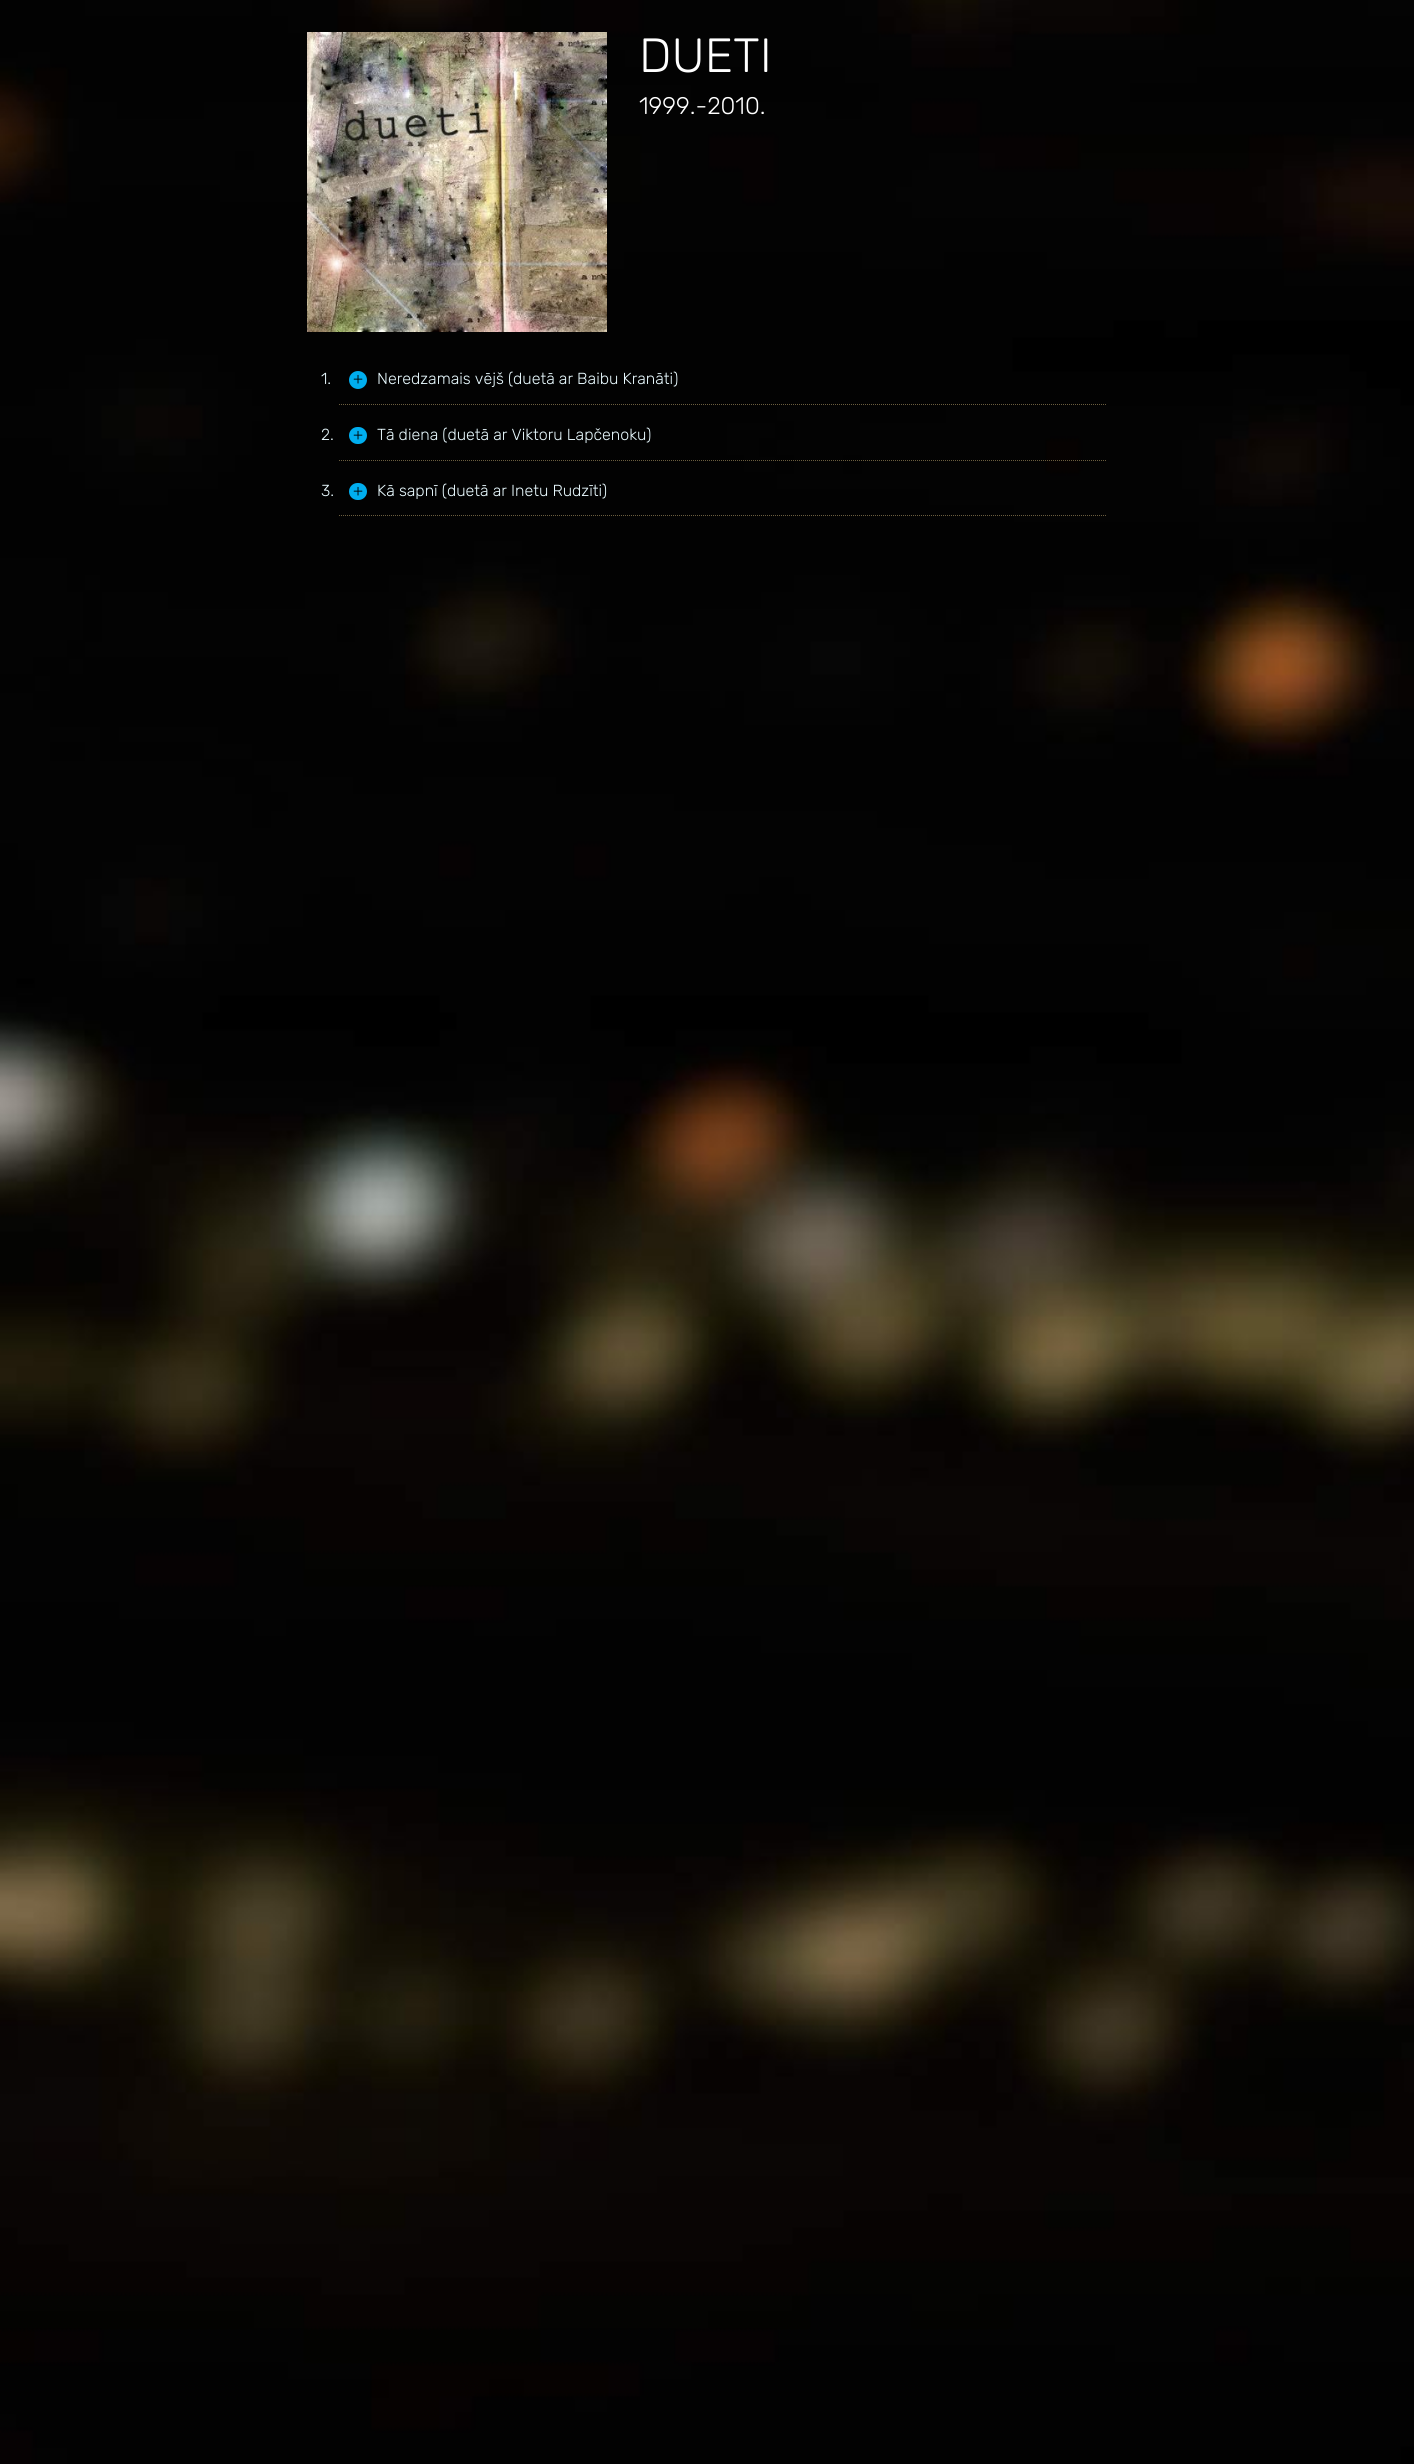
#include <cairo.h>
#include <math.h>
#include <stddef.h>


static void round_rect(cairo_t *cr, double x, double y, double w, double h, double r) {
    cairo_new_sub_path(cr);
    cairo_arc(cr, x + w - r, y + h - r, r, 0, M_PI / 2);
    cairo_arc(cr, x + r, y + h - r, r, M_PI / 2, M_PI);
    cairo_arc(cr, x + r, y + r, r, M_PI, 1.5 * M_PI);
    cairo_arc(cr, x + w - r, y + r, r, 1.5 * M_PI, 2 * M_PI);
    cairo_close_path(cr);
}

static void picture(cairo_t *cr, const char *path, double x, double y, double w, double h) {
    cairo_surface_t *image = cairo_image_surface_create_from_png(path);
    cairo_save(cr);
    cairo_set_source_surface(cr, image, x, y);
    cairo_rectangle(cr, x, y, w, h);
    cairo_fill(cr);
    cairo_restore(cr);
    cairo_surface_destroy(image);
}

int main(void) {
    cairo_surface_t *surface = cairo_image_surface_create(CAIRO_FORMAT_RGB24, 1414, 2464);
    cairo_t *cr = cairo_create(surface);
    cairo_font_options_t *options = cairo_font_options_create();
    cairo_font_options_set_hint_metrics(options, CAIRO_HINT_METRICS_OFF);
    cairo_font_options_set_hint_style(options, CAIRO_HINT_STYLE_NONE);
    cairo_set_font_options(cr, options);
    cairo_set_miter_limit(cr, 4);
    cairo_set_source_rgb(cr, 1, 1, 1);
    cairo_paint(cr);
    picture(cr, "img1.png", 0, 0, 1414, 2464);
    picture(cr, "img2.png", 307, 32, 300, 300);
    cairo_select_font_face(cr, "Rubik Light", CAIRO_FONT_SLANT_NORMAL, CAIRO_FONT_WEIGHT_NORMAL);
    cairo_set_font_size(cr, 48);
    cairo_set_source_rgb(cr, 1, 1, 1);
    cairo_move_to(cr, 639, 72);
    cairo_show_text(cr, "DUETI");
    cairo_set_font_size(cr, 24);
    cairo_move_to(cr, 639, 114);
    cairo_show_text(cr, "1999.-2010.");
    cairo_new_path(cr);
    cairo_move_to(cr, 339, 404.5);
    cairo_line_to(cr, 1107, 404.5);
    cairo_set_source_rgb(cr, 0.42, 0.369, 0.247);
    cairo_set_line_width(cr, 1);
    cairo_set_dash(cr, (double[]){1, 1}, 2, 0);
    cairo_stroke(cr);
    cairo_set_font_size(cr, 16);
    cairo_set_source_rgb(cr, 0.91, 0.976, 0.996);
    cairo_move_to(cr, 321, 384);
    cairo_show_text(cr, "1.");
    cairo_set_source_rgb(cr, 0, 0.682, 0.937);
    cairo_new_path(cr);
    cairo_arc(cr, 358, 380, 9, 0, 2 * M_PI);
    cairo_fill(cr);
    cairo_set_source_rgb(cr, 0, 0, 0);
    cairo_move_to(cr, 353, 384);
    cairo_show_text(cr, "+");
    cairo_set_source_rgb(cr, 0.91, 0.976, 0.996);
    cairo_move_to(cr, 377, 384);
    cairo_show_text(cr, "Neredzamais vējš (duetā ar Baibu Kranāti)");
    cairo_new_path(cr);
    cairo_move_to(cr, 339, 460.5);
    cairo_line_to(cr, 1107, 460.5);
    cairo_set_source_rgb(cr, 0.42, 0.369, 0.247);
    cairo_stroke(cr);
    cairo_set_source_rgb(cr, 0.91, 0.976, 0.996);
    cairo_move_to(cr, 321, 440);
    cairo_show_text(cr, "2.");
    cairo_set_source_rgb(cr, 0, 0.682, 0.937);
    round_rect(cr, 349, 427, 18, 17, 8.5);
    cairo_fill(cr);
    cairo_set_source_rgb(cr, 0, 0, 0);
    cairo_move_to(cr, 353, 440);
    cairo_show_text(cr, "+");
    cairo_set_source_rgb(cr, 0.91, 0.976, 0.996);
    cairo_move_to(cr, 377, 440);
    cairo_show_text(cr, "Tā diena (duetā ar Viktoru Lapčenoku)");
    cairo_new_path(cr);
    cairo_move_to(cr, 339, 515.5);
    cairo_line_to(cr, 1107, 515.5);
    cairo_set_source_rgb(cr, 0.42, 0.369, 0.247);
    cairo_stroke(cr);
    cairo_set_source_rgb(cr, 0.91, 0.976, 0.996);
    cairo_move_to(cr, 321, 496);
    cairo_show_text(cr, "3.");
    cairo_set_source_rgb(cr, 0, 0.682, 0.937);
    round_rect(cr, 349, 483, 18, 17, 8.5);
    cairo_fill(cr);
    cairo_set_source_rgb(cr, 0, 0, 0);
    cairo_move_to(cr, 353, 496);
    cairo_show_text(cr, "+");
    cairo_set_source_rgb(cr, 0.91, 0.976, 0.996);
    cairo_move_to(cr, 377, 496);
    cairo_show_text(cr, "Kā sapnī (duetā ar Inetu Rudzīti)");
    cairo_surface_write_to_png(surface, "page.png");
    cairo_font_options_destroy(options);
    cairo_destroy(cr);
    cairo_surface_destroy(surface);
    return 0;
}
